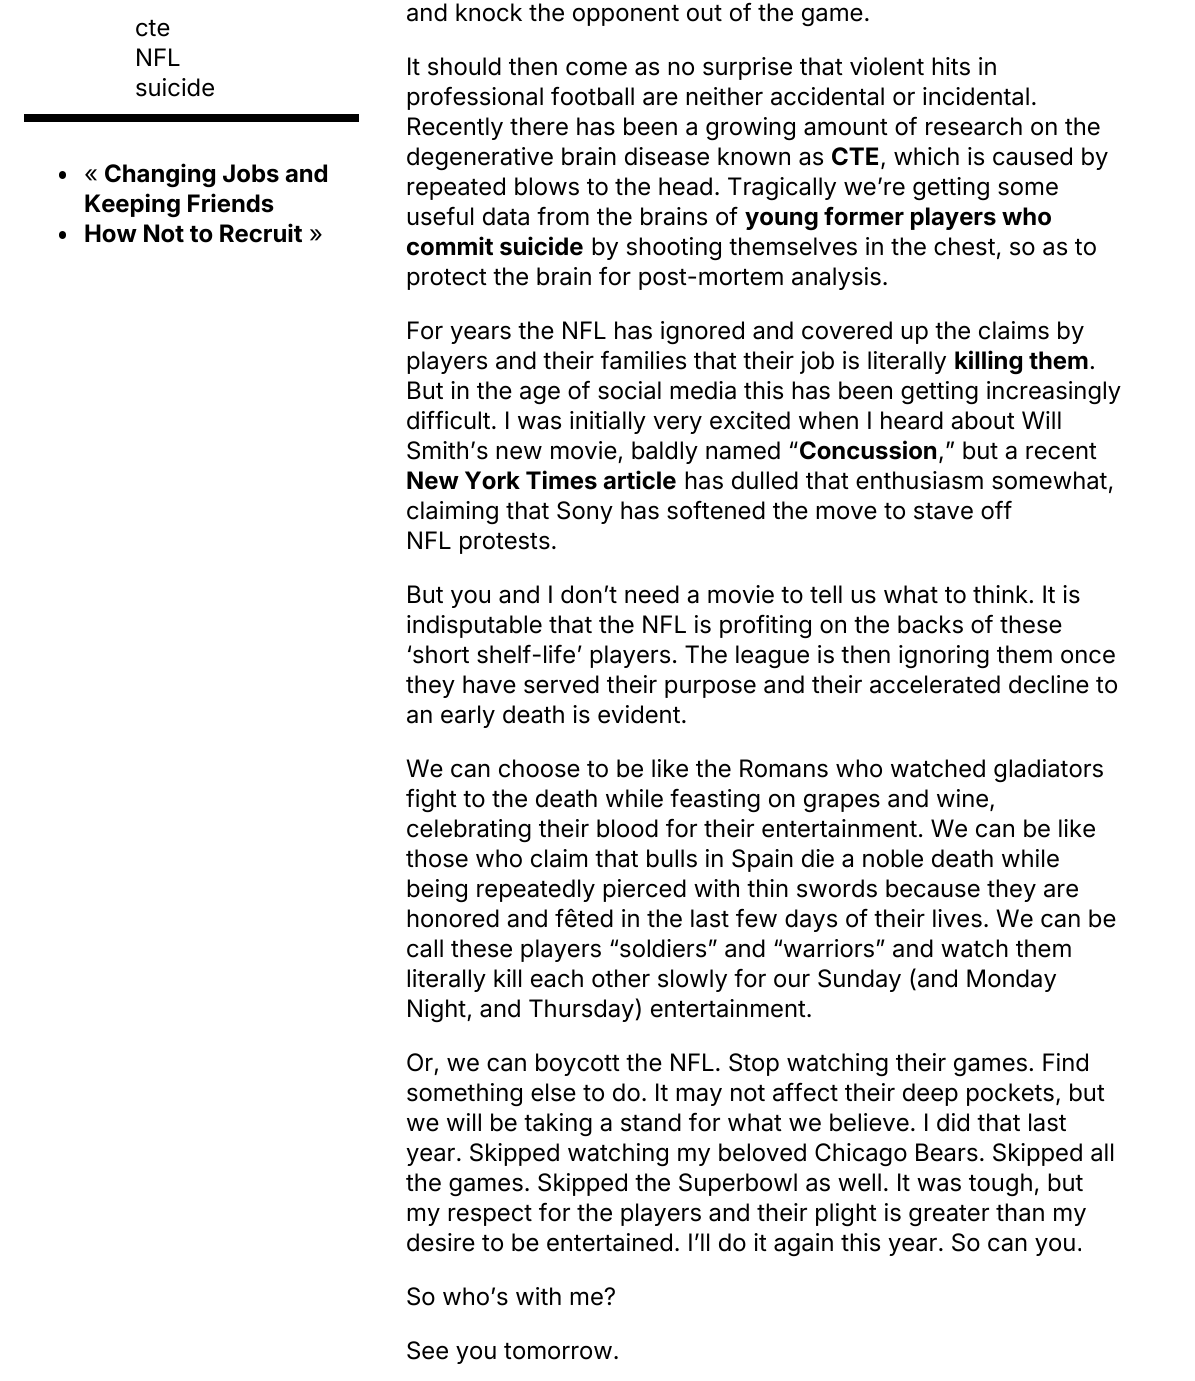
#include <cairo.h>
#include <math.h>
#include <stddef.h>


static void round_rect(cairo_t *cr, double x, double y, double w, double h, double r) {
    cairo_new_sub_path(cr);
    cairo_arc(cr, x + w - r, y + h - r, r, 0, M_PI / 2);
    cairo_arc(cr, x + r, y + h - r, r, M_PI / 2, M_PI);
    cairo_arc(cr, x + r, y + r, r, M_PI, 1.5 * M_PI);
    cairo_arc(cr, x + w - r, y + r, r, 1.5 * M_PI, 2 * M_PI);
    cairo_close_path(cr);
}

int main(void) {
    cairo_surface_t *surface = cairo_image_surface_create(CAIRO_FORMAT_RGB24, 1195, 1381);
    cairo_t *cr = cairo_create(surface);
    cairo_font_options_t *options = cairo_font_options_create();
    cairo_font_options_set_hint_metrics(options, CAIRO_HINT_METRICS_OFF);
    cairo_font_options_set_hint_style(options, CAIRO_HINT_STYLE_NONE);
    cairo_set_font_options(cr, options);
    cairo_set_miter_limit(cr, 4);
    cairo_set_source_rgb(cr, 1, 1, 1);
    cairo_paint(cr);
    cairo_select_font_face(cr, "Inter", CAIRO_FONT_SLANT_NORMAL, CAIRO_FONT_WEIGHT_NORMAL);
    cairo_set_font_size(cr, 24);
    cairo_set_source_rgb(cr, 0, 0, 0);
    cairo_move_to(cr, 135, 36);
    cairo_show_text(cr, "cte");
    cairo_move_to(cr, 135, 66);
    cairo_show_text(cr, "NFL");
    cairo_move_to(cr, 135, 96);
    cairo_show_text(cr, "suicide");
    cairo_rectangle(cr, 24, 114, 335, 8);
    cairo_fill(cr);
    round_rect(cr, 59, 171, 7, 8, 3.5);
    cairo_fill(cr);
    cairo_move_to(cr, 84, 182);
    cairo_show_text(cr, "«");
    cairo_select_font_face(cr, "Inter", CAIRO_FONT_SLANT_NORMAL, CAIRO_FONT_WEIGHT_BOLD);
    cairo_move_to(cr, 104, 182);
    cairo_show_text(cr, "Changing Jobs and");
    cairo_move_to(cr, 84, 212);
    cairo_show_text(cr, "Keeping Friends");
    round_rect(cr, 59, 231, 7, 8, 3.5);
    cairo_fill(cr);
    cairo_move_to(cr, 84, 242);
    cairo_show_text(cr, "How Not to Recruit");
    cairo_select_font_face(cr, "Inter", CAIRO_FONT_SLANT_NORMAL, CAIRO_FONT_WEIGHT_NORMAL);
    cairo_move_to(cr, 309, 242);
    cairo_show_text(cr, "»");
    cairo_move_to(cr, 406, 21);
    cairo_show_text(cr, "and knock the opponent out of the game.");
    cairo_move_to(cr, 406, 75);
    cairo_show_text(cr, "It should then come as no surprise that violent hits in");
    cairo_move_to(cr, 406, 105);
    cairo_show_text(cr, "professional football are neither accidental or incidental.");
    cairo_move_to(cr, 406, 135);
    cairo_show_text(cr, "Recently there has been a growing amount of research on the");
    cairo_move_to(cr, 406, 165);
    cairo_show_text(cr, "degenerative brain disease known as");
    cairo_select_font_face(cr, "Inter", CAIRO_FONT_SLANT_NORMAL, CAIRO_FONT_WEIGHT_BOLD);
    cairo_move_to(cr, 831, 165);
    cairo_show_text(cr, "CTE");
    cairo_select_font_face(cr, "Inter", CAIRO_FONT_SLANT_NORMAL, CAIRO_FONT_WEIGHT_NORMAL);
    cairo_move_to(cr, 880, 165);
    cairo_show_text(cr, ", which is caused by");
    cairo_move_to(cr, 406, 195);
    cairo_show_text(cr, "repeated blows to the head. Tragically we’re getting some");
    cairo_move_to(cr, 406, 225);
    cairo_show_text(cr, "useful data from the brains of");
    cairo_select_font_face(cr, "Inter", CAIRO_FONT_SLANT_NORMAL, CAIRO_FONT_WEIGHT_BOLD);
    cairo_move_to(cr, 745, 225);
    cairo_show_text(cr, "young former players who");
    cairo_move_to(cr, 406, 255);
    cairo_show_text(cr, "commit suicide");
    cairo_select_font_face(cr, "Inter", CAIRO_FONT_SLANT_NORMAL, CAIRO_FONT_WEIGHT_NORMAL);
    cairo_move_to(cr, 591, 255);
    cairo_show_text(cr, "by shooting themselves in the chest, so as to");
    cairo_move_to(cr, 406, 285);
    cairo_show_text(cr, "protect the brain for post-mortem analysis.");
    cairo_move_to(cr, 406, 339);
    cairo_show_text(cr, "For years the NFL has ignored and covered up the claims by");
    cairo_move_to(cr, 406, 369);
    cairo_show_text(cr, "players and their families that their job is literally");
    cairo_select_font_face(cr, "Inter", CAIRO_FONT_SLANT_NORMAL, CAIRO_FONT_WEIGHT_BOLD);
    cairo_move_to(cr, 954, 369);
    cairo_show_text(cr, "killing them");
    cairo_select_font_face(cr, "Inter", CAIRO_FONT_SLANT_NORMAL, CAIRO_FONT_WEIGHT_NORMAL);
    cairo_move_to(cr, 1089, 369);
    cairo_show_text(cr, ".");
    cairo_move_to(cr, 406, 399);
    cairo_show_text(cr, "But in the age of social media this has been getting increasingly");
    cairo_move_to(cr, 406, 429);
    cairo_show_text(cr, "difficult. I was initially very excited when I heard about Will");
    cairo_move_to(cr, 406, 459);
    cairo_show_text(cr, "Smith’s new movie, baldly named “");
    cairo_select_font_face(cr, "Inter", CAIRO_FONT_SLANT_NORMAL, CAIRO_FONT_WEIGHT_BOLD);
    cairo_move_to(cr, 799, 459);
    cairo_show_text(cr, "Concussion");
    cairo_select_font_face(cr, "Inter", CAIRO_FONT_SLANT_NORMAL, CAIRO_FONT_WEIGHT_NORMAL);
    cairo_move_to(cr, 938, 459);
    cairo_show_text(cr, ",” but a recent");
    cairo_select_font_face(cr, "Inter", CAIRO_FONT_SLANT_NORMAL, CAIRO_FONT_WEIGHT_BOLD);
    cairo_move_to(cr, 406, 489);
    cairo_show_text(cr, "New York Times article");
    cairo_select_font_face(cr, "Inter", CAIRO_FONT_SLANT_NORMAL, CAIRO_FONT_WEIGHT_NORMAL);
    cairo_move_to(cr, 684, 489);
    cairo_show_text(cr, "has dulled that enthusiasm somewhat,");
    cairo_move_to(cr, 406, 519);
    cairo_show_text(cr, "claiming that Sony has softened the move to stave off");
    cairo_move_to(cr, 406, 549);
    cairo_show_text(cr, "NFL protests.");
    cairo_move_to(cr, 406, 603);
    cairo_show_text(cr, "But you and I don’t need a movie to tell us what to think. It is");
    cairo_move_to(cr, 406, 633);
    cairo_show_text(cr, "indisputable that the NFL is profiting on the backs of these");
    cairo_move_to(cr, 406, 663);
    cairo_show_text(cr, "‘short shelf-life’ players. The league is then ignoring them once");
    cairo_move_to(cr, 406, 693);
    cairo_show_text(cr, "they have served their purpose and their accelerated decline to");
    cairo_move_to(cr, 406, 723);
    cairo_show_text(cr, "an early death is evident.");
    cairo_move_to(cr, 406, 777);
    cairo_show_text(cr, "We can choose to be like the Romans who watched gladiators");
    cairo_move_to(cr, 406, 807);
    cairo_show_text(cr, "fight to the death while feasting on grapes and wine,");
    cairo_move_to(cr, 406, 837);
    cairo_show_text(cr, "celebrating their blood for their entertainment. We can be like");
    cairo_move_to(cr, 406, 867);
    cairo_show_text(cr, "those who claim that bulls in Spain die a noble death while");
    cairo_move_to(cr, 406, 897);
    cairo_show_text(cr, "being repeatedly pierced with thin swords because they are");
    cairo_move_to(cr, 406, 927);
    cairo_show_text(cr, "honored and fêted in the last few days of their lives. We can be");
    cairo_move_to(cr, 406, 957);
    cairo_show_text(cr, "call these players “soldiers” and “warriors” and watch them");
    cairo_move_to(cr, 406, 987);
    cairo_show_text(cr, "literally kill each other slowly for our Sunday (and Monday");
    cairo_move_to(cr, 406, 1017);
    cairo_show_text(cr, "Night, and Thursday) entertainment.");
    cairo_move_to(cr, 406, 1071);
    cairo_show_text(cr, "Or, we can boycott the NFL. Stop watching their games. Find");
    cairo_move_to(cr, 406, 1101);
    cairo_show_text(cr, "something else to do. It may not affect their deep pockets, but");
    cairo_move_to(cr, 406, 1131);
    cairo_show_text(cr, "we will be taking a stand for what we believe. I did that last");
    cairo_move_to(cr, 406, 1161);
    cairo_show_text(cr, "year. Skipped watching my beloved Chicago Bears. Skipped all");
    cairo_move_to(cr, 406, 1191);
    cairo_show_text(cr, "the games. Skipped the Superbowl as well. It was tough, but");
    cairo_move_to(cr, 406, 1221);
    cairo_show_text(cr, "my respect for the players and their plight is greater than my");
    cairo_move_to(cr, 406, 1251);
    cairo_show_text(cr, "desire to be entertained. I’ll do it again this year. So can you.");
    cairo_move_to(cr, 406, 1305);
    cairo_show_text(cr, "So who’s with me?");
    cairo_move_to(cr, 406, 1359);
    cairo_show_text(cr, "See you tomorrow.");
    cairo_surface_write_to_png(surface, "page.png");
    cairo_font_options_destroy(options);
    cairo_destroy(cr);
    cairo_surface_destroy(surface);
    return 0;
}
